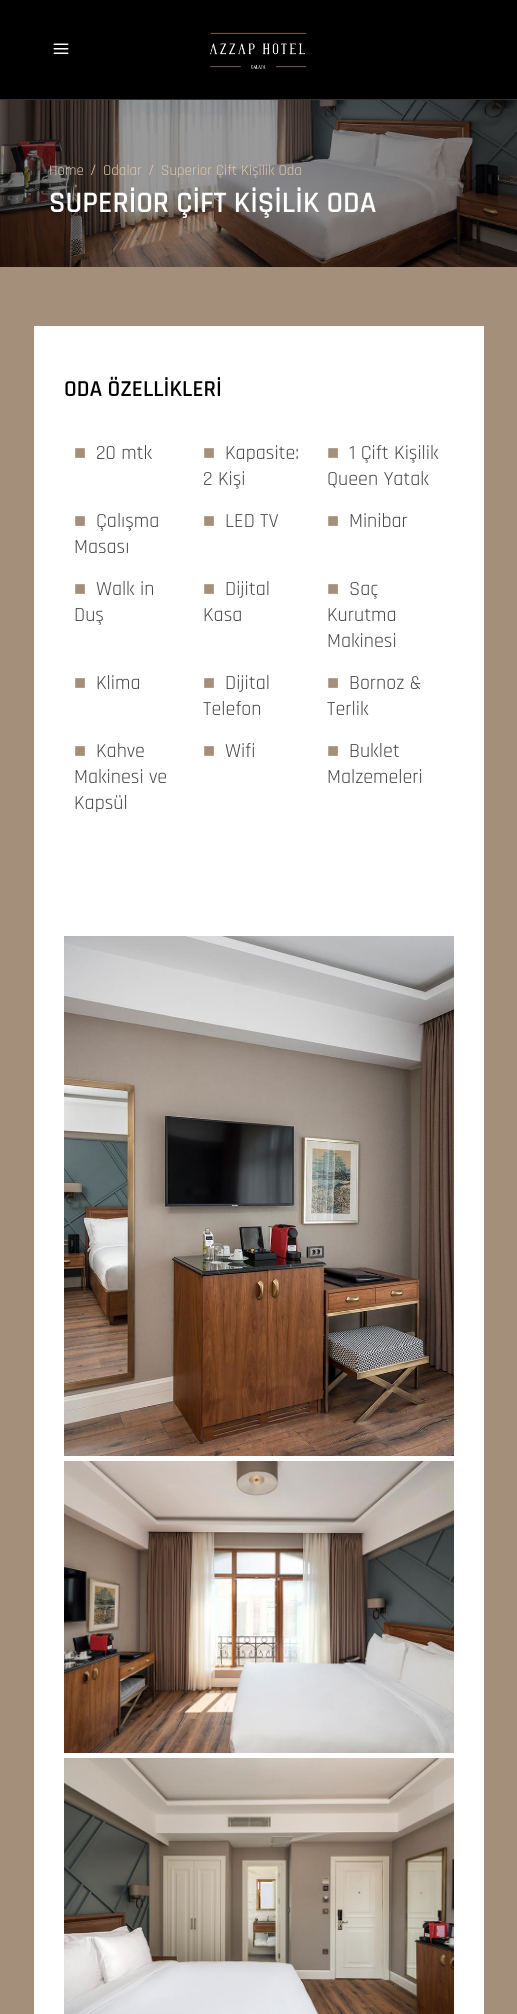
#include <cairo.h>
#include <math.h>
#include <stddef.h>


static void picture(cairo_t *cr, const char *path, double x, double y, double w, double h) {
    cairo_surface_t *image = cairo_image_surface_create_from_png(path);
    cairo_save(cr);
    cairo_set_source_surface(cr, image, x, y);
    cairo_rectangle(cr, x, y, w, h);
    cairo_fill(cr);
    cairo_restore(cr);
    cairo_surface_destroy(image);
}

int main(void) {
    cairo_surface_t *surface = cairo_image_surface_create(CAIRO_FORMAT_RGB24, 517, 2014);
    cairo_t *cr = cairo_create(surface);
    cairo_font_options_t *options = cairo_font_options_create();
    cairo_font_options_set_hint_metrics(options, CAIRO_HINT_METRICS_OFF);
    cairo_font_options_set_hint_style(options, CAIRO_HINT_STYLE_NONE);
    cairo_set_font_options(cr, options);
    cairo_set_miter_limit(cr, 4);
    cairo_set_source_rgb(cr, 0.643, 0.561, 0.478);
    cairo_paint(cr);
    cairo_set_source_rgb(cr, 0, 0, 0);
    cairo_rectangle(cr, 0, 0, 517, 99);
    cairo_fill(cr);
    cairo_set_source_rgb(cr, 0.204, 0.204, 0.204);
    cairo_rectangle(cr, 0, 99, 517, 1);
    cairo_fill(cr);
    picture(cr, "img1.png", 53, 43, 16, 11);
    picture(cr, "img2.png", 209, 32, 98, 37);
    picture(cr, "img3.png", 0, 100, 517, 167);
    cairo_select_font_face(cr, "Rajdhani", CAIRO_FONT_SLANT_NORMAL, CAIRO_FONT_WEIGHT_NORMAL);
    cairo_set_font_size(cr, 15);
    cairo_set_source_rgb(cr, 0.89, 0.776, 0.663);
    cairo_move_to(cr, 49, 175);
    cairo_show_text(cr, "Home");
    cairo_set_font_size(cr, 16);
    cairo_move_to(cr, 90, 175);
    cairo_show_text(cr, "/");
    cairo_set_font_size(cr, 15);
    cairo_move_to(cr, 103, 175);
    cairo_show_text(cr, "Odalar");
    cairo_set_font_size(cr, 16);
    cairo_move_to(cr, 148, 175);
    cairo_show_text(cr, "/");
    cairo_set_font_size(cr, 15);
    cairo_move_to(cr, 161, 175);
    cairo_show_text(cr, "Superior Çift Kişilik Oda");
    cairo_select_font_face(cr, "Rajdhani SemiBold", CAIRO_FONT_SLANT_NORMAL, CAIRO_FONT_WEIGHT_NORMAL);
    cairo_set_font_size(cr, 30);
    cairo_set_source_rgb(cr, 1, 1, 1);
    cairo_move_to(cr, 49, 212);
    cairo_show_text(cr, "SUPERİOR ÇİFT KİŞİLİK ODA");
    cairo_rectangle(cr, 34, 326, 450, 1688);
    cairo_fill(cr);
    cairo_set_font_size(cr, 23);
    cairo_set_source_rgb(cr, 0, 0, 0);
    cairo_move_to(cr, 64, 396);
    cairo_show_text(cr, "ODA ÖZELLİKLERİ");
    cairo_select_font_face(cr, "Liberation Serif", CAIRO_FONT_SLANT_NORMAL, CAIRO_FONT_WEIGHT_NORMAL);
    cairo_set_font_size(cr, 20);
    cairo_set_source_rgb(cr, 0.643, 0.561, 0.478);
    cairo_move_to(cr, 74, 459);
    cairo_show_text(cr, "■");
    cairo_select_font_face(cr, "Rajdhani", CAIRO_FONT_SLANT_NORMAL, CAIRO_FONT_WEIGHT_NORMAL);
    cairo_set_source_rgb(cr, 0.275, 0.275, 0.275);
    cairo_move_to(cr, 96, 459);
    cairo_show_text(cr, "20 mtk");
    cairo_select_font_face(cr, "Liberation Serif", CAIRO_FONT_SLANT_NORMAL, CAIRO_FONT_WEIGHT_NORMAL);
    cairo_set_source_rgb(cr, 0.643, 0.561, 0.478);
    cairo_move_to(cr, 203, 459);
    cairo_show_text(cr, "■");
    cairo_select_font_face(cr, "Rajdhani", CAIRO_FONT_SLANT_NORMAL, CAIRO_FONT_WEIGHT_NORMAL);
    cairo_set_source_rgb(cr, 0.275, 0.275, 0.275);
    cairo_move_to(cr, 225, 459);
    cairo_show_text(cr, "Kapasite:");
    cairo_move_to(cr, 203, 485);
    cairo_show_text(cr, "2 Kişi");
    cairo_select_font_face(cr, "Liberation Serif", CAIRO_FONT_SLANT_NORMAL, CAIRO_FONT_WEIGHT_NORMAL);
    cairo_set_source_rgb(cr, 0.643, 0.561, 0.478);
    cairo_move_to(cr, 327, 459);
    cairo_show_text(cr, "■");
    cairo_select_font_face(cr, "Rajdhani", CAIRO_FONT_SLANT_NORMAL, CAIRO_FONT_WEIGHT_NORMAL);
    cairo_set_source_rgb(cr, 0.275, 0.275, 0.275);
    cairo_move_to(cr, 349, 459);
    cairo_show_text(cr, "1 Çift Kişilik");
    cairo_move_to(cr, 327, 485);
    cairo_show_text(cr, "Queen Yatak");
    cairo_select_font_face(cr, "Liberation Serif", CAIRO_FONT_SLANT_NORMAL, CAIRO_FONT_WEIGHT_NORMAL);
    cairo_set_source_rgb(cr, 0.643, 0.561, 0.478);
    cairo_move_to(cr, 74, 527);
    cairo_show_text(cr, "■");
    cairo_select_font_face(cr, "Rajdhani", CAIRO_FONT_SLANT_NORMAL, CAIRO_FONT_WEIGHT_NORMAL);
    cairo_set_source_rgb(cr, 0.275, 0.275, 0.275);
    cairo_move_to(cr, 96, 527);
    cairo_show_text(cr, "Çalışma");
    cairo_move_to(cr, 74, 553);
    cairo_show_text(cr, "Masası");
    cairo_select_font_face(cr, "Liberation Serif", CAIRO_FONT_SLANT_NORMAL, CAIRO_FONT_WEIGHT_NORMAL);
    cairo_set_source_rgb(cr, 0.643, 0.561, 0.478);
    cairo_move_to(cr, 203, 527);
    cairo_show_text(cr, "■");
    cairo_select_font_face(cr, "Rajdhani", CAIRO_FONT_SLANT_NORMAL, CAIRO_FONT_WEIGHT_NORMAL);
    cairo_set_source_rgb(cr, 0.275, 0.275, 0.275);
    cairo_move_to(cr, 225, 527);
    cairo_show_text(cr, "LED TV");
    cairo_select_font_face(cr, "Liberation Serif", CAIRO_FONT_SLANT_NORMAL, CAIRO_FONT_WEIGHT_NORMAL);
    cairo_set_source_rgb(cr, 0.643, 0.561, 0.478);
    cairo_move_to(cr, 327, 527);
    cairo_show_text(cr, "■");
    cairo_select_font_face(cr, "Rajdhani", CAIRO_FONT_SLANT_NORMAL, CAIRO_FONT_WEIGHT_NORMAL);
    cairo_set_source_rgb(cr, 0.275, 0.275, 0.275);
    cairo_move_to(cr, 349, 527);
    cairo_show_text(cr, "Minibar");
    cairo_select_font_face(cr, "Liberation Serif", CAIRO_FONT_SLANT_NORMAL, CAIRO_FONT_WEIGHT_NORMAL);
    cairo_set_source_rgb(cr, 0.643, 0.561, 0.478);
    cairo_move_to(cr, 74, 595);
    cairo_show_text(cr, "■");
    cairo_select_font_face(cr, "Rajdhani", CAIRO_FONT_SLANT_NORMAL, CAIRO_FONT_WEIGHT_NORMAL);
    cairo_set_source_rgb(cr, 0.275, 0.275, 0.275);
    cairo_move_to(cr, 96, 595);
    cairo_show_text(cr, "Walk in");
    cairo_move_to(cr, 74, 621);
    cairo_show_text(cr, "Duş");
    cairo_select_font_face(cr, "Liberation Serif", CAIRO_FONT_SLANT_NORMAL, CAIRO_FONT_WEIGHT_NORMAL);
    cairo_set_source_rgb(cr, 0.643, 0.561, 0.478);
    cairo_move_to(cr, 203, 595);
    cairo_show_text(cr, "■");
    cairo_select_font_face(cr, "Rajdhani", CAIRO_FONT_SLANT_NORMAL, CAIRO_FONT_WEIGHT_NORMAL);
    cairo_set_source_rgb(cr, 0.275, 0.275, 0.275);
    cairo_move_to(cr, 225, 595);
    cairo_show_text(cr, "Dijital");
    cairo_move_to(cr, 203, 621);
    cairo_show_text(cr, "Kasa");
    cairo_select_font_face(cr, "Liberation Serif", CAIRO_FONT_SLANT_NORMAL, CAIRO_FONT_WEIGHT_NORMAL);
    cairo_set_source_rgb(cr, 0.643, 0.561, 0.478);
    cairo_move_to(cr, 327, 595);
    cairo_show_text(cr, "■");
    cairo_select_font_face(cr, "Rajdhani", CAIRO_FONT_SLANT_NORMAL, CAIRO_FONT_WEIGHT_NORMAL);
    cairo_set_source_rgb(cr, 0.275, 0.275, 0.275);
    cairo_move_to(cr, 349, 595);
    cairo_show_text(cr, "Saç");
    cairo_move_to(cr, 327, 621);
    cairo_show_text(cr, "Kurutma");
    cairo_move_to(cr, 327, 647);
    cairo_show_text(cr, "Makinesi");
    cairo_select_font_face(cr, "Liberation Serif", CAIRO_FONT_SLANT_NORMAL, CAIRO_FONT_WEIGHT_NORMAL);
    cairo_set_source_rgb(cr, 0.643, 0.561, 0.478);
    cairo_move_to(cr, 74, 689);
    cairo_show_text(cr, "■");
    cairo_select_font_face(cr, "Rajdhani", CAIRO_FONT_SLANT_NORMAL, CAIRO_FONT_WEIGHT_NORMAL);
    cairo_set_source_rgb(cr, 0.275, 0.275, 0.275);
    cairo_move_to(cr, 96, 689);
    cairo_show_text(cr, "Klima");
    cairo_select_font_face(cr, "Liberation Serif", CAIRO_FONT_SLANT_NORMAL, CAIRO_FONT_WEIGHT_NORMAL);
    cairo_set_source_rgb(cr, 0.643, 0.561, 0.478);
    cairo_move_to(cr, 203, 689);
    cairo_show_text(cr, "■");
    cairo_select_font_face(cr, "Rajdhani", CAIRO_FONT_SLANT_NORMAL, CAIRO_FONT_WEIGHT_NORMAL);
    cairo_set_source_rgb(cr, 0.275, 0.275, 0.275);
    cairo_move_to(cr, 225, 689);
    cairo_show_text(cr, "Dijital");
    cairo_move_to(cr, 203, 715);
    cairo_show_text(cr, "Telefon");
    cairo_select_font_face(cr, "Liberation Serif", CAIRO_FONT_SLANT_NORMAL, CAIRO_FONT_WEIGHT_NORMAL);
    cairo_set_source_rgb(cr, 0.643, 0.561, 0.478);
    cairo_move_to(cr, 327, 689);
    cairo_show_text(cr, "■");
    cairo_select_font_face(cr, "Rajdhani", CAIRO_FONT_SLANT_NORMAL, CAIRO_FONT_WEIGHT_NORMAL);
    cairo_set_source_rgb(cr, 0.275, 0.275, 0.275);
    cairo_move_to(cr, 349, 689);
    cairo_show_text(cr, "Bornoz &");
    cairo_move_to(cr, 327, 715);
    cairo_show_text(cr, "Terlik");
    cairo_select_font_face(cr, "Liberation Serif", CAIRO_FONT_SLANT_NORMAL, CAIRO_FONT_WEIGHT_NORMAL);
    cairo_set_source_rgb(cr, 0.643, 0.561, 0.478);
    cairo_move_to(cr, 74, 757);
    cairo_show_text(cr, "■");
    cairo_select_font_face(cr, "Rajdhani", CAIRO_FONT_SLANT_NORMAL, CAIRO_FONT_WEIGHT_NORMAL);
    cairo_set_source_rgb(cr, 0.275, 0.275, 0.275);
    cairo_move_to(cr, 96, 757);
    cairo_show_text(cr, "Kahve");
    cairo_move_to(cr, 74, 783);
    cairo_show_text(cr, "Makinesi ve");
    cairo_move_to(cr, 74, 809);
    cairo_show_text(cr, "Kapsül");
    cairo_select_font_face(cr, "Liberation Serif", CAIRO_FONT_SLANT_NORMAL, CAIRO_FONT_WEIGHT_NORMAL);
    cairo_set_source_rgb(cr, 0.643, 0.561, 0.478);
    cairo_move_to(cr, 203, 757);
    cairo_show_text(cr, "■");
    cairo_select_font_face(cr, "Rajdhani", CAIRO_FONT_SLANT_NORMAL, CAIRO_FONT_WEIGHT_NORMAL);
    cairo_set_source_rgb(cr, 0.275, 0.275, 0.275);
    cairo_move_to(cr, 225, 757);
    cairo_show_text(cr, "Wifi");
    cairo_select_font_face(cr, "Liberation Serif", CAIRO_FONT_SLANT_NORMAL, CAIRO_FONT_WEIGHT_NORMAL);
    cairo_set_source_rgb(cr, 0.643, 0.561, 0.478);
    cairo_move_to(cr, 327, 757);
    cairo_show_text(cr, "■");
    cairo_select_font_face(cr, "Rajdhani", CAIRO_FONT_SLANT_NORMAL, CAIRO_FONT_WEIGHT_NORMAL);
    cairo_set_source_rgb(cr, 0.275, 0.275, 0.275);
    cairo_move_to(cr, 349, 757);
    cairo_show_text(cr, "Buklet");
    cairo_move_to(cr, 327, 783);
    cairo_show_text(cr, "Malzemeleri");
    picture(cr, "img4.png", 64, 936, 390, 520);
    picture(cr, "img5.png", 64, 1461, 390, 292);
    picture(cr, "img6.png", 64, 1758, 390, 256);
    cairo_surface_write_to_png(surface, "page.png");
    cairo_font_options_destroy(options);
    cairo_destroy(cr);
    cairo_surface_destroy(surface);
    return 0;
}
